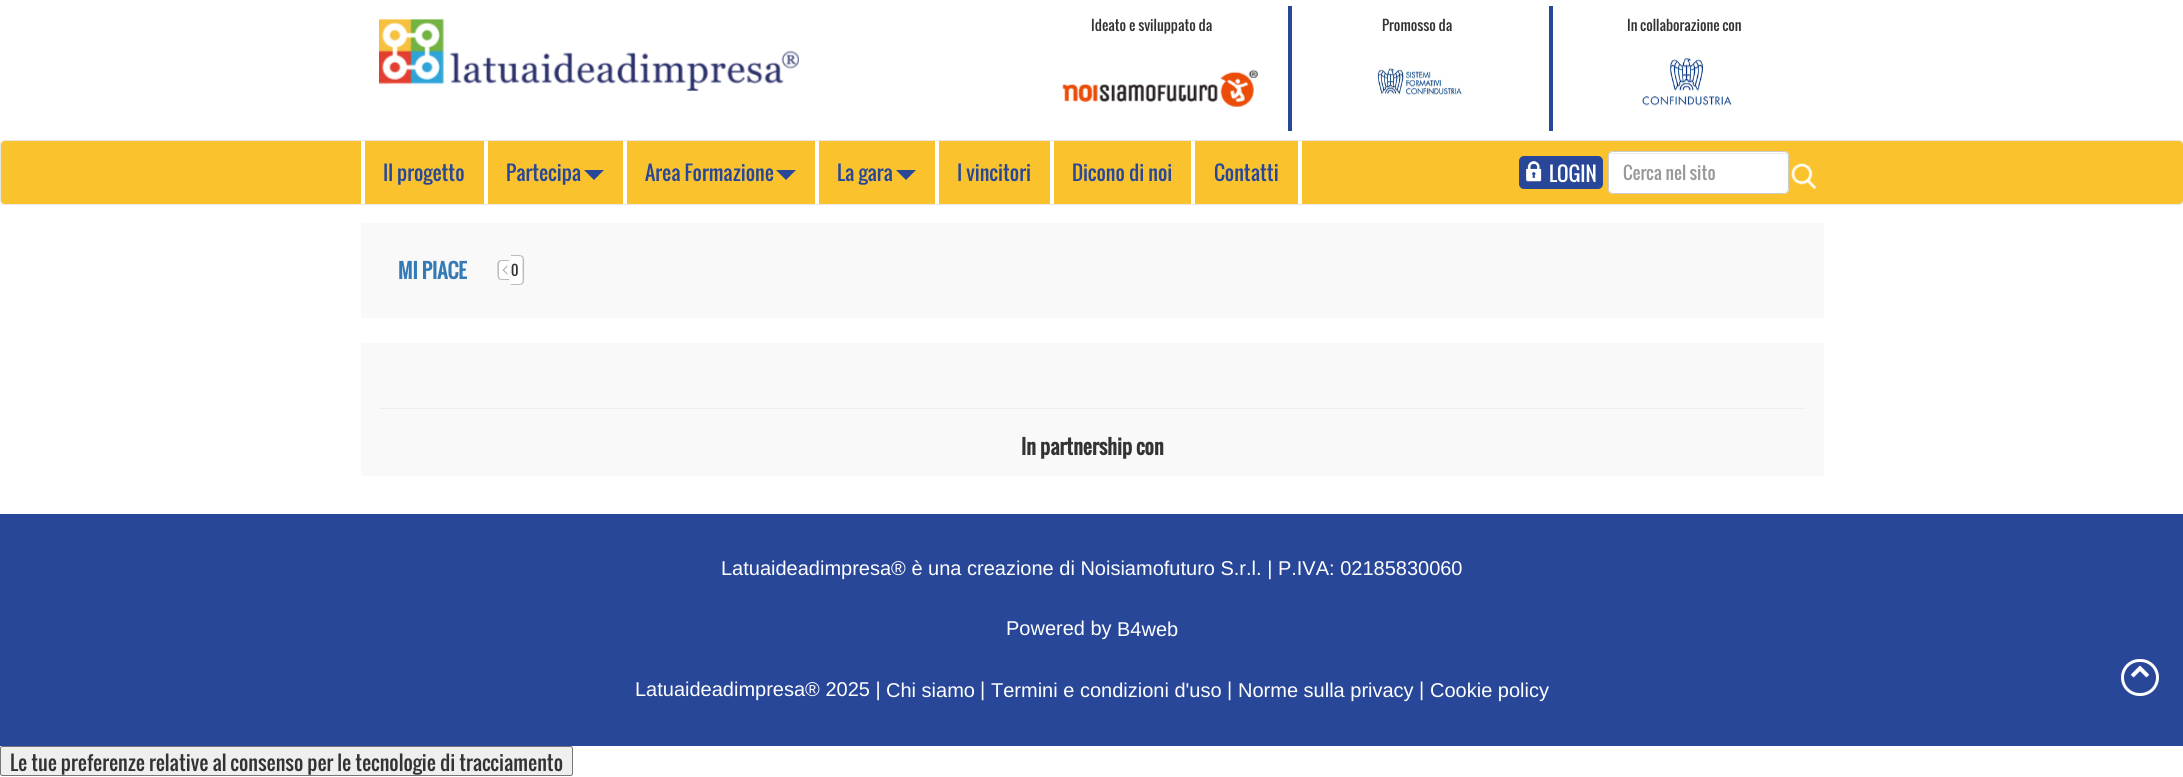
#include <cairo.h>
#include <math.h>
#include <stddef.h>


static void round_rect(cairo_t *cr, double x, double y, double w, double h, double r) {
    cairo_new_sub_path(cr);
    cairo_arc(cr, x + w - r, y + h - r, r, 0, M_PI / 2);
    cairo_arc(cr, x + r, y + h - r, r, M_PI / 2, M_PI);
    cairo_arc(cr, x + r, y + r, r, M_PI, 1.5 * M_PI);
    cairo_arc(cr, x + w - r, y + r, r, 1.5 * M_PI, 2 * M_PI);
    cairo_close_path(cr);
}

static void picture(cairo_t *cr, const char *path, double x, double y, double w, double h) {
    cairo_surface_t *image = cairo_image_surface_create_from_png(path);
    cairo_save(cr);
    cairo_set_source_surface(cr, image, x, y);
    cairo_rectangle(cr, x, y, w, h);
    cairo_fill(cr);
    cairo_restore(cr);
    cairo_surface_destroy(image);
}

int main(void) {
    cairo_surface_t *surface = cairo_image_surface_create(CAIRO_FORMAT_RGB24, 2183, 777);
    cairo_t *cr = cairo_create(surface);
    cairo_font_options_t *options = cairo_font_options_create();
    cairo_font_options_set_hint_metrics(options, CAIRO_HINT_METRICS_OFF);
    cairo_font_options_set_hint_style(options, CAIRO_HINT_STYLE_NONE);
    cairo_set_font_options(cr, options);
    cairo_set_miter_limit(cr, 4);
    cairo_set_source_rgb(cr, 1, 1, 1);
    cairo_paint(cr);
    picture(cr, "img1.png", 379, 19, 420, 72);
    cairo_select_font_face(cr, "Oswald", CAIRO_FONT_SLANT_NORMAL, CAIRO_FONT_WEIGHT_NORMAL);
    cairo_set_font_size(cr, 14);
    cairo_set_source_rgb(cr, 0.2, 0.2, 0.2);
    cairo_move_to(cr, 1091, 31);
    cairo_show_text(cr, "Ideato e sviluppato da");
    picture(cr, "img2.png", 1062, 69, 196, 38);
    cairo_set_source_rgb(cr, 0.157, 0.278, 0.596);
    cairo_rectangle(cr, 1549, 6, 4, 125);
    cairo_fill(cr);
    cairo_rectangle(cr, 1288, 6, 4, 125);
    cairo_fill(cr);
    cairo_set_source_rgb(cr, 0.2, 0.2, 0.2);
    cairo_move_to(cr, 1382, 31);
    cairo_show_text(cr, "Promosso da");
    picture(cr, "img3.png", 1376, 68, 86, 28);
    cairo_move_to(cr, 1627, 31);
    cairo_show_text(cr, "In collaborazione con");
    picture(cr, "img4.png", 1642, 58, 90, 48);
    cairo_set_source_rgb(cr, 0.98, 0.765, 0.18);
    round_rect(cr, 0.5, 140.5, 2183, 64, 4.5);
    cairo_fill_preserve(cr);
    cairo_set_source_rgb(cr, 0.906, 0.906, 0.906);
    cairo_set_line_width(cr, 1);
    cairo_stroke(cr);
    cairo_set_source_rgb(cr, 1, 1, 1);
    cairo_rectangle(cr, 361, 141, 4, 63);
    cairo_fill(cr);
    cairo_set_font_size(cr, 20);
    cairo_set_source_rgb(cr, 0.157, 0.278, 0.596);
    cairo_move_to(cr, 383, 181);
    cairo_show_text(cr, "Il progetto");
    cairo_set_source_rgb(cr, 1, 1, 1);
    cairo_rectangle(cr, 484, 141, 4, 63);
    cairo_fill(cr);
    cairo_set_source_rgb(cr, 0.157, 0.278, 0.596);
    cairo_move_to(cr, 506, 181);
    cairo_show_text(cr, "Partecipa");
    cairo_new_path(cr);
    cairo_move_to(cr, 584, 170);
    cairo_line_to(cr, 604, 170);
    cairo_line_to(cr, 594, 180);
    cairo_close_path(cr);
    cairo_fill(cr);
    cairo_set_source_rgb(cr, 1, 1, 1);
    cairo_rectangle(cr, 623, 141, 4, 63);
    cairo_fill(cr);
    cairo_set_source_rgb(cr, 0.157, 0.278, 0.596);
    cairo_move_to(cr, 645, 181);
    cairo_show_text(cr, "Area Formazione");
    cairo_new_path(cr);
    cairo_move_to(cr, 776, 170);
    cairo_line_to(cr, 796, 170);
    cairo_line_to(cr, 786, 180);
    cairo_close_path(cr);
    cairo_fill(cr);
    cairo_set_source_rgb(cr, 1, 1, 1);
    cairo_rectangle(cr, 815, 141, 4, 63);
    cairo_fill(cr);
    cairo_set_source_rgb(cr, 0.157, 0.278, 0.596);
    cairo_move_to(cr, 837, 181);
    cairo_show_text(cr, "La gara");
    cairo_new_path(cr);
    cairo_move_to(cr, 896, 170);
    cairo_line_to(cr, 916, 170);
    cairo_line_to(cr, 906, 180);
    cairo_close_path(cr);
    cairo_fill(cr);
    cairo_set_source_rgb(cr, 1, 1, 1);
    cairo_rectangle(cr, 935, 141, 4, 63);
    cairo_fill(cr);
    cairo_set_source_rgb(cr, 0.157, 0.278, 0.596);
    cairo_move_to(cr, 957, 181);
    cairo_show_text(cr, "I vincitori");
    cairo_set_source_rgb(cr, 1, 1, 1);
    cairo_rectangle(cr, 1050, 141, 4, 63);
    cairo_fill(cr);
    cairo_set_source_rgb(cr, 0.157, 0.278, 0.596);
    cairo_move_to(cr, 1072, 181);
    cairo_show_text(cr, "Dicono di noi");
    cairo_set_source_rgb(cr, 1, 1, 1);
    cairo_rectangle(cr, 1298, 141, 4, 63);
    cairo_fill(cr);
    cairo_rectangle(cr, 1191, 141, 4, 63);
    cairo_fill(cr);
    cairo_set_source_rgb(cr, 0.157, 0.278, 0.596);
    cairo_move_to(cr, 1214, 181);
    cairo_show_text(cr, "Contatti");
    round_rect(cr, 1519, 156, 84, 33, 5);
    cairo_fill(cr);
    picture(cr, "img5.png", 1526, 161, 16, 21);
    cairo_set_source_rgb(cr, 1, 1, 1);
    cairo_move_to(cr, 1549, 182);
    cairo_show_text(cr, "LOGIN");
    round_rect(cr, 1608, 151, 181, 43, 5);
    cairo_fill(cr);
    cairo_set_source_rgb(cr, 0.925, 0.925, 0.925);
    cairo_new_path(cr);
    cairo_move_to(cr, 1612, 154);
    cairo_line_to(cr, 1784, 154);
    cairo_curve_to(cr, 1786, 154, 1788, 155, 1788, 158);
    cairo_line_to(cr, 1788, 157);
    cairo_curve_to(cr, 1788, 155, 1786, 153, 1784, 153);
    cairo_line_to(cr, 1613, 153);
    cairo_curve_to(cr, 1611, 153, 1609, 155, 1609, 157);
    cairo_line_to(cr, 1609, 158);
    cairo_curve_to(cr, 1609, 155, 1610, 154, 1612, 154);
    cairo_close_path(cr);
    cairo_fill(cr);
    round_rect(cr, 1608.5, 151.5, 180, 42, 4.5);
    cairo_set_source_rgb(cr, 0.8, 0.8, 0.8);
    cairo_stroke(cr);
    cairo_set_font_size(cr, 17.5);
    cairo_set_source_rgb(cr, 0.6, 0.6, 0.6);
    cairo_move_to(cr, 1623, 180);
    cairo_show_text(cr, "Cerca nel sito");
    picture(cr, "img6.png", 1791, 163, 26, 26);
    cairo_set_source_rgb(cr, 0.976, 0.976, 0.976);
    cairo_rectangle(cr, 361, 223, 1463, 95);
    cairo_fill(cr);
    cairo_select_font_face(cr, "Oswald", CAIRO_FONT_SLANT_NORMAL, CAIRO_FONT_WEIGHT_BOLD);
    cairo_set_font_size(cr, 20);
    cairo_set_source_rgb(cr, 0.2, 0.478, 0.718);
    cairo_move_to(cr, 398, 279);
    cairo_show_text(cr, "MI PIACE");
    cairo_set_source_rgb(cr, 1, 1, 1);
    cairo_new_path(cr);
    cairo_move_to(cr, 502, 260);
    cairo_line_to(cr, 508, 260);
    cairo_line_to(cr, 508, 280);
    cairo_line_to(cr, 502, 280);
    cairo_curve_to(cr, 500, 280, 498, 278, 498, 276);
    cairo_line_to(cr, 498, 264);
    cairo_curve_to(cr, 498, 262, 500, 260, 502, 260);
    cairo_close_path(cr);
    cairo_fill(cr);
    cairo_set_source_rgb(cr, 0.733, 0.733, 0.733);
    cairo_set_fill_rule(cr, CAIRO_FILL_RULE_EVEN_ODD);
    cairo_new_path(cr);
    cairo_move_to(cr, 501, 260);
    cairo_line_to(cr, 507.5, 260);
    cairo_line_to(cr, 507.5, 280);
    cairo_curve_to(cr, 497.5, 280, 497.5, 281, 497.5, 270);
    cairo_curve_to(cr, 497.5, 267, 496, 260, 501, 260);
    cairo_close_path(cr);
    cairo_move_to(cr, 501, 261);
    cairo_line_to(cr, 507.5, 261);
    cairo_line_to(cr, 507.5, 279);
    cairo_line_to(cr, 501, 279);
    cairo_curve_to(cr, 500, 279, 499, 277.5, 499, 276);
    cairo_line_to(cr, 499, 264);
    cairo_curve_to(cr, 499, 262.5, 500, 261, 501, 261);
    cairo_close_path(cr);
    cairo_fill(cr);
    cairo_set_source_rgb(cr, 1, 1, 1);
    cairo_rectangle(cr, 504, 260, 5, 20);
    cairo_fill(cr);
    cairo_set_source_rgb(cr, 0.733, 0.733, 0.733);
    cairo_rectangle(cr, 504, 260, 5, 1);
    cairo_fill(cr);
    cairo_rectangle(cr, 504, 279, 5, 1);
    cairo_fill(cr);
    cairo_set_source_rgb(cr, 1, 1, 1);
    cairo_new_path(cr);
    cairo_move_to(cr, 511, 255);
    cairo_line_to(cr, 520, 255);
    cairo_curve_to(cr, 522, 255, 524, 257, 524, 259);
    cairo_line_to(cr, 524, 281);
    cairo_curve_to(cr, 524, 283, 522, 285, 520, 285);
    cairo_line_to(cr, 511, 285);
    cairo_close_path(cr);
    cairo_fill(cr);
    cairo_set_source_rgb(cr, 0.733, 0.733, 0.733);
    cairo_new_path(cr);
    cairo_move_to(cr, 511, 255);
    cairo_curve_to(cr, 526, 255, 524, 254, 524, 270);
    cairo_curve_to(cr, 524, 286, 526, 285, 511, 285);
    cairo_close_path(cr);
    cairo_move_to(cr, 511, 256);
    cairo_curve_to(cr, 525, 256, 522.5, 254.5, 522.5, 270);
    cairo_curve_to(cr, 522.5, 285.5, 525, 284, 511, 284);
    cairo_close_path(cr);
    cairo_fill(cr);
    cairo_set_source_rgb(cr, 0.667, 0.667, 0.667);
    cairo_set_fill_rule(cr, CAIRO_FILL_RULE_WINDING);
    cairo_new_path(cr);
    cairo_move_to(cr, 507.5, 265);
    cairo_line_to(cr, 507.5, 275);
    cairo_line_to(cr, 502.5, 270);
    cairo_close_path(cr);
    cairo_fill(cr);
    cairo_select_font_face(cr, "Oswald", CAIRO_FONT_SLANT_NORMAL, CAIRO_FONT_WEIGHT_NORMAL);
    cairo_set_font_size(cr, 14);
    cairo_set_source_rgb(cr, 0.2, 0.2, 0.2);
    cairo_move_to(cr, 511, 276);
    cairo_show_text(cr, "0");
    cairo_set_source_rgb(cr, 1, 1, 1);
    cairo_new_path(cr);
    cairo_move_to(cr, 509, 265);
    cairo_line_to(cr, 509, 275);
    cairo_line_to(cr, 504, 270);
    cairo_close_path(cr);
    cairo_fill(cr);
    cairo_set_source_rgb(cr, 0.976, 0.976, 0.976);
    cairo_rectangle(cr, 361, 343, 1463, 133);
    cairo_fill(cr);
    cairo_set_source_rgb(cr, 0.933, 0.933, 0.933);
    cairo_rectangle(cr, 380, 408, 1425, 1);
    cairo_fill(cr);
    cairo_select_font_face(cr, "Oswald", CAIRO_FONT_SLANT_NORMAL, CAIRO_FONT_WEIGHT_BOLD);
    cairo_set_font_size(cr, 20);
    cairo_set_source_rgb(cr, 0.2, 0.2, 0.2);
    cairo_move_to(cr, 1021, 455);
    cairo_show_text(cr, "In partnership con");
    cairo_set_source_rgb(cr, 0.157, 0.278, 0.596);
    cairo_rectangle(cr, 0, 514, 2183, 232);
    cairo_fill(cr);
    cairo_select_font_face(cr, "Liberation Sans", CAIRO_FONT_SLANT_NORMAL, CAIRO_FONT_WEIGHT_NORMAL);
    cairo_set_source_rgb(cr, 1, 1, 1);
    cairo_move_to(cr, 721, 575);
    cairo_show_text(cr, "Latuaideadimpresa® è una creazione di Noisiamofuturo S.r.l. | P.IVA: 02185830060");
    cairo_move_to(cr, 1006, 635);
    cairo_show_text(cr, "Powered by");
    cairo_move_to(cr, 1117, 636);
    cairo_show_text(cr, "B4web");
    cairo_move_to(cr, 635, 696);
    cairo_show_text(cr, "Latuaideadimpresa® 2025 |");
    cairo_move_to(cr, 886, 697);
    cairo_show_text(cr, "Chi siamo");
    cairo_move_to(cr, 980, 696);
    cairo_show_text(cr, "|");
    cairo_move_to(cr, 991, 697);
    cairo_show_text(cr, "Termini e condizioni d'uso");
    cairo_move_to(cr, 1227, 696);
    cairo_show_text(cr, "|");
    cairo_move_to(cr, 1238, 697);
    cairo_show_text(cr, "Norme sulla privacy");
    cairo_move_to(cr, 1419, 696);
    cairo_show_text(cr, "|");
    cairo_move_to(cr, 1430, 697);
    cairo_show_text(cr, "Cookie policy");
    round_rect(cr, 2122.5, 660.5, 35, 34, 17);
    cairo_set_line_width(cr, 3);
    cairo_stroke(cr);
    picture(cr, "img7.png", 2131, 665, 18, 13);
    cairo_set_source_rgb(cr, 0.937, 0.937, 0.937);
    round_rect(cr, 0.5, 746.5, 572, 29, 2);
    cairo_fill_preserve(cr);
    cairo_set_source_rgb(cr, 0.463, 0.463, 0.463);
    cairo_set_line_width(cr, 1);
    cairo_stroke(cr);
    cairo_select_font_face(cr, "Oswald", CAIRO_FONT_SLANT_NORMAL, CAIRO_FONT_WEIGHT_NORMAL);
    cairo_set_source_rgb(cr, 0.2, 0.2, 0.2);
    cairo_move_to(cr, 10, 771);
    cairo_show_text(cr, "Le tue preferenze relative al consenso per le tecnologie di tracciamento");
    cairo_surface_write_to_png(surface, "page.png");
    cairo_font_options_destroy(options);
    cairo_destroy(cr);
    cairo_surface_destroy(surface);
    return 0;
}
